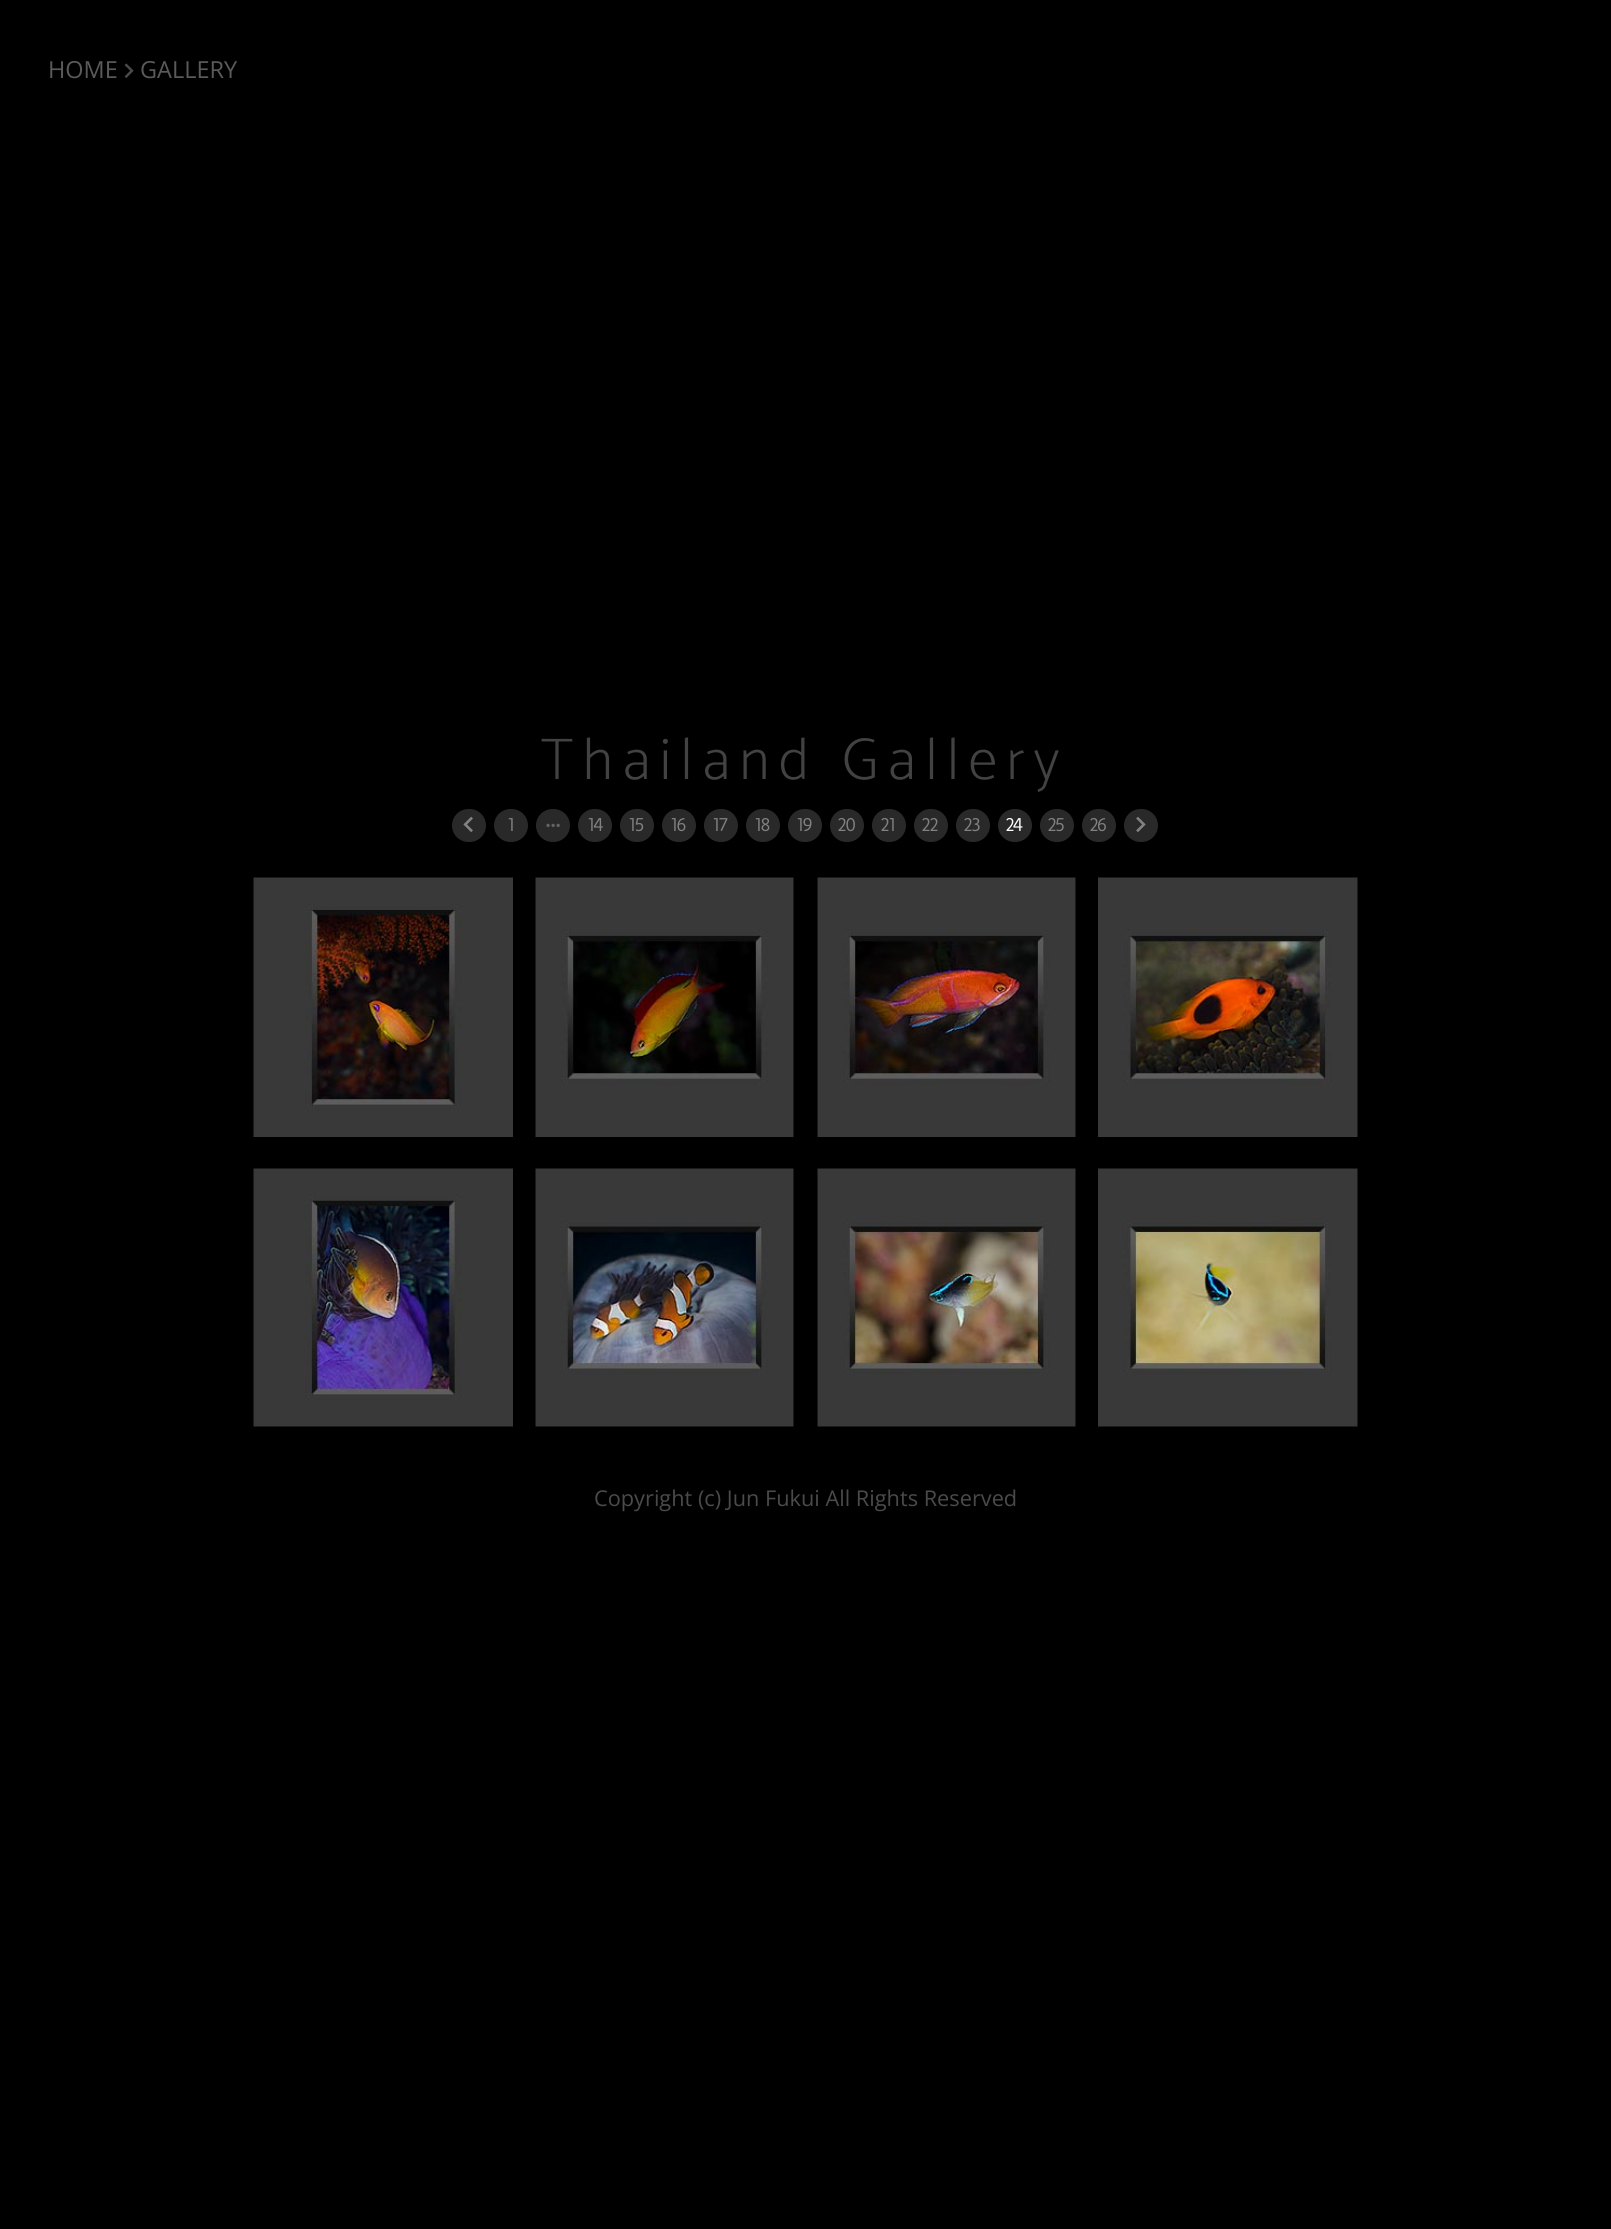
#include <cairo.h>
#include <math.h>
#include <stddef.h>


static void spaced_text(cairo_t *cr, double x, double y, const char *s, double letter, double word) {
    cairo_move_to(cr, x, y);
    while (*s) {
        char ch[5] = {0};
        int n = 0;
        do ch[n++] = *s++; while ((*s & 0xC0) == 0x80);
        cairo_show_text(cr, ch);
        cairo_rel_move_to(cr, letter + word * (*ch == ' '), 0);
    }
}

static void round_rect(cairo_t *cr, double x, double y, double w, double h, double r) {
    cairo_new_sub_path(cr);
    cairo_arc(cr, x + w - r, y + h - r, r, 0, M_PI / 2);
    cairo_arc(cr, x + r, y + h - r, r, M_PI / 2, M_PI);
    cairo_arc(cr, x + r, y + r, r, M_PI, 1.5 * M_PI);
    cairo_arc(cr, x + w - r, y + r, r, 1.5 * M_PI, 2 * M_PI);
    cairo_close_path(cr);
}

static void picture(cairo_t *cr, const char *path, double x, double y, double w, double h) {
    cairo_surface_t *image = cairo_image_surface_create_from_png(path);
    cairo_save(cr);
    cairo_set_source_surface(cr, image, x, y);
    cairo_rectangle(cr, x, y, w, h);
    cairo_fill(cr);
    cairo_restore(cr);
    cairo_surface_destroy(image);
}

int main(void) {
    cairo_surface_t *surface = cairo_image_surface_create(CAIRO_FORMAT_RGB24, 1611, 2229);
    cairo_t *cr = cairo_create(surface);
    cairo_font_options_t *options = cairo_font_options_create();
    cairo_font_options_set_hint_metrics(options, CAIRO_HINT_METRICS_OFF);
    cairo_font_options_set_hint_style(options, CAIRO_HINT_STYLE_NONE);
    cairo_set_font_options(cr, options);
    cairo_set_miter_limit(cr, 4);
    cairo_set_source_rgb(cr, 0, 0, 0);
    cairo_paint(cr);
    cairo_select_font_face(cr, "Open Sans", CAIRO_FONT_SLANT_NORMAL, CAIRO_FONT_WEIGHT_NORMAL);
    cairo_set_font_size(cr, 23.5);
    cairo_set_source_rgb(cr, 0.353, 0.353, 0.353);
    cairo_move_to(cr, 48, 78);
    cairo_show_text(cr, "HOME");
    picture(cr, "img1.png", 124, 63, 10, 15);
    cairo_move_to(cr, 140, 78);
    cairo_show_text(cr, "GALLERY");
    cairo_select_font_face(cr, "Catamaran Thin", CAIRO_FONT_SLANT_NORMAL, CAIRO_FONT_WEIGHT_NORMAL);
    cairo_set_font_size(cr, 59);
    cairo_set_source_rgb(cr, 0.259, 0.259, 0.259);
    spaced_text(cr, 541, 779, "Thailand Gallery", 9.3, 0);
    cairo_set_source_rgb(cr, 0.161, 0.161, 0.161);
    round_rect(cr, 452, 809, 34, 33, 16.5);
    cairo_fill(cr);
    picture(cr, "img2.png", 463, 816, 10, 17);
    round_rect(cr, 494, 809, 34, 33, 16.5);
    cairo_fill(cr);
    cairo_select_font_face(cr, "Duru Sans", CAIRO_FONT_SLANT_NORMAL, CAIRO_FONT_WEIGHT_NORMAL);
    cairo_set_font_size(cr, 17);
    cairo_set_source_rgb(cr, 0.51, 0.51, 0.51);
    spaced_text(cr, 507, 831, "1", -2, 0);
    cairo_set_source_rgb(cr, 0.161, 0.161, 0.161);
    round_rect(cr, 536, 809, 34, 33, 16.5);
    cairo_fill(cr);
    picture(cr, "img3.png", 546, 823, 14, 4);
    round_rect(cr, 578, 809, 34, 33, 16.5);
    cairo_fill(cr);
    cairo_set_source_rgb(cr, 0.51, 0.51, 0.51);
    spaced_text(cr, 587, 831, "14", -2, 0);
    cairo_set_source_rgb(cr, 0.161, 0.161, 0.161);
    round_rect(cr, 620, 809, 34, 33, 16.5);
    cairo_fill(cr);
    cairo_set_source_rgb(cr, 0.51, 0.51, 0.51);
    spaced_text(cr, 628, 831, "15", -2, 0);
    cairo_set_source_rgb(cr, 0.161, 0.161, 0.161);
    round_rect(cr, 662, 809, 34, 33, 16.5);
    cairo_fill(cr);
    cairo_set_source_rgb(cr, 0.51, 0.51, 0.51);
    spaced_text(cr, 670, 831, "16", -2, 0);
    cairo_set_source_rgb(cr, 0.161, 0.161, 0.161);
    round_rect(cr, 704, 809, 34, 33, 16.5);
    cairo_fill(cr);
    cairo_set_source_rgb(cr, 0.51, 0.51, 0.51);
    spaced_text(cr, 712, 831, "17", -2, 0);
    cairo_set_source_rgb(cr, 0.161, 0.161, 0.161);
    round_rect(cr, 746, 809, 34, 33, 16.5);
    cairo_fill(cr);
    cairo_set_source_rgb(cr, 0.51, 0.51, 0.51);
    spaced_text(cr, 754, 831, "18", -2, 0);
    cairo_set_source_rgb(cr, 0.161, 0.161, 0.161);
    round_rect(cr, 788, 809, 34, 33, 16.5);
    cairo_fill(cr);
    cairo_set_source_rgb(cr, 0.51, 0.51, 0.51);
    spaced_text(cr, 796, 831, "19", -2, 0);
    cairo_set_source_rgb(cr, 0.161, 0.161, 0.161);
    round_rect(cr, 830, 809, 34, 33, 16.5);
    cairo_fill(cr);
    cairo_set_source_rgb(cr, 0.51, 0.51, 0.51);
    spaced_text(cr, 837, 831, "20", -2, 0);
    cairo_set_source_rgb(cr, 0.161, 0.161, 0.161);
    round_rect(cr, 872, 809, 34, 33, 16.5);
    cairo_fill(cr);
    cairo_set_source_rgb(cr, 0.51, 0.51, 0.51);
    spaced_text(cr, 880, 831, "21", -2, 0);
    cairo_set_source_rgb(cr, 0.161, 0.161, 0.161);
    round_rect(cr, 914, 809, 34, 33, 16.5);
    cairo_fill(cr);
    cairo_set_source_rgb(cr, 0.51, 0.51, 0.51);
    spaced_text(cr, 921, 831, "22", -2, 0);
    cairo_set_source_rgb(cr, 0.161, 0.161, 0.161);
    round_rect(cr, 956, 809, 34, 33, 16.5);
    cairo_fill(cr);
    cairo_set_source_rgb(cr, 0.51, 0.51, 0.51);
    spaced_text(cr, 963, 831, "23", -2, 0);
    cairo_set_source_rgb(cr, 0.161, 0.161, 0.161);
    round_rect(cr, 998, 809, 34, 33, 16.5);
    cairo_fill(cr);
    cairo_set_source_rgb(cr, 1, 1, 1);
    spaced_text(cr, 1005, 831, "24", -2, 0);
    cairo_set_source_rgb(cr, 0.161, 0.161, 0.161);
    round_rect(cr, 1040, 809, 34, 33, 16.5);
    cairo_fill(cr);
    cairo_set_source_rgb(cr, 0.51, 0.51, 0.51);
    spaced_text(cr, 1047, 831, "25", -2, 0);
    cairo_set_source_rgb(cr, 0.161, 0.161, 0.161);
    round_rect(cr, 1082, 809, 34, 33, 16.5);
    cairo_fill(cr);
    cairo_set_source_rgb(cr, 0.51, 0.51, 0.51);
    spaced_text(cr, 1089, 831, "26", -2, 0);
    cairo_set_source_rgb(cr, 0.161, 0.161, 0.161);
    round_rect(cr, 1124, 809, 34, 33, 16.5);
    cairo_fill(cr);
    picture(cr, "img4.png", 1136, 816, 10, 16);
    picture(cr, "img5.png", 253, 877, 260, 260);
    picture(cr, "img6.png", 535, 877, 259, 260);
    picture(cr, "img7.png", 817, 877, 259, 260);
    picture(cr, "img8.png", 1098, 877, 260, 260);
    picture(cr, "img9.png", 253, 1168, 260, 259);
    picture(cr, "img10.png", 535, 1168, 259, 259);
    picture(cr, "img11.png", 817, 1168, 259, 259);
    picture(cr, "img12.png", 1098, 1168, 260, 259);
    cairo_select_font_face(cr, "Open Sans", CAIRO_FONT_SLANT_NORMAL, CAIRO_FONT_WEIGHT_NORMAL);
    cairo_set_font_size(cr, 21.75);
    cairo_set_source_rgb(cr, 0.29, 0.29, 0.29);
    cairo_move_to(cr, 594, 1506);
    cairo_show_text(cr, "Copyright (c) Jun Fukui All Rights Reserved");
    cairo_surface_write_to_png(surface, "page.png");
    cairo_font_options_destroy(options);
    cairo_destroy(cr);
    cairo_surface_destroy(surface);
    return 0;
}
